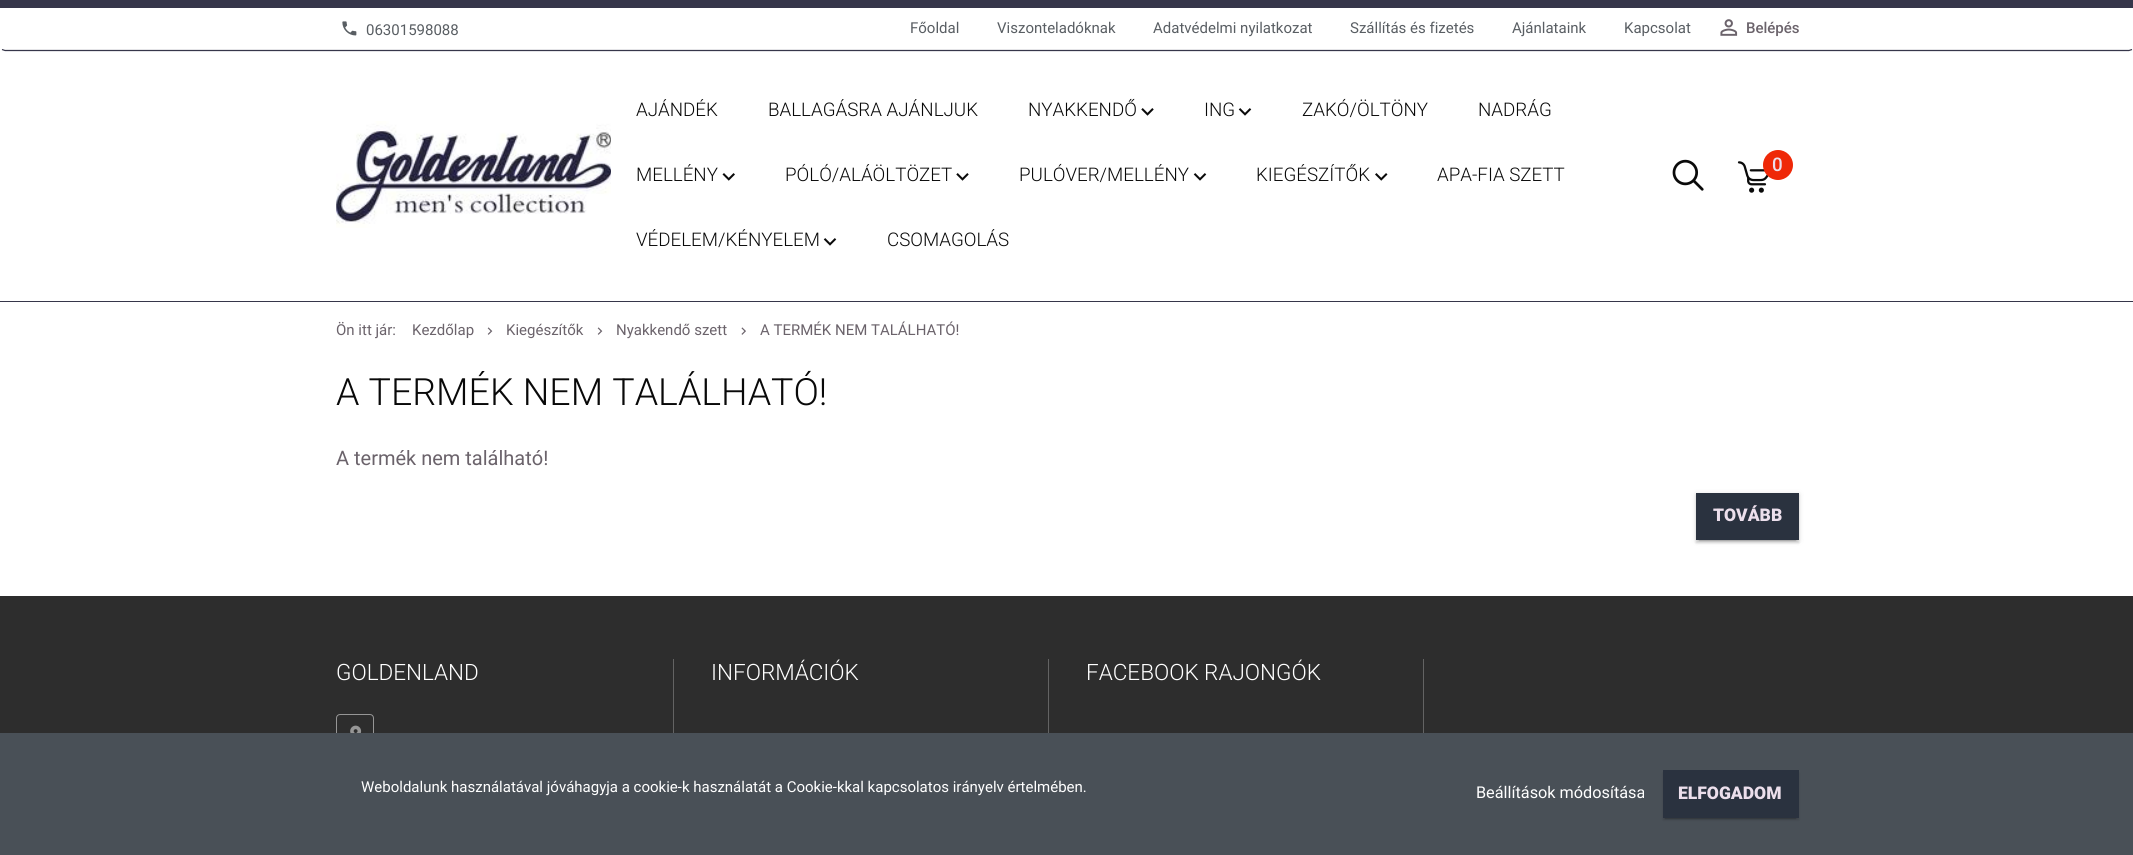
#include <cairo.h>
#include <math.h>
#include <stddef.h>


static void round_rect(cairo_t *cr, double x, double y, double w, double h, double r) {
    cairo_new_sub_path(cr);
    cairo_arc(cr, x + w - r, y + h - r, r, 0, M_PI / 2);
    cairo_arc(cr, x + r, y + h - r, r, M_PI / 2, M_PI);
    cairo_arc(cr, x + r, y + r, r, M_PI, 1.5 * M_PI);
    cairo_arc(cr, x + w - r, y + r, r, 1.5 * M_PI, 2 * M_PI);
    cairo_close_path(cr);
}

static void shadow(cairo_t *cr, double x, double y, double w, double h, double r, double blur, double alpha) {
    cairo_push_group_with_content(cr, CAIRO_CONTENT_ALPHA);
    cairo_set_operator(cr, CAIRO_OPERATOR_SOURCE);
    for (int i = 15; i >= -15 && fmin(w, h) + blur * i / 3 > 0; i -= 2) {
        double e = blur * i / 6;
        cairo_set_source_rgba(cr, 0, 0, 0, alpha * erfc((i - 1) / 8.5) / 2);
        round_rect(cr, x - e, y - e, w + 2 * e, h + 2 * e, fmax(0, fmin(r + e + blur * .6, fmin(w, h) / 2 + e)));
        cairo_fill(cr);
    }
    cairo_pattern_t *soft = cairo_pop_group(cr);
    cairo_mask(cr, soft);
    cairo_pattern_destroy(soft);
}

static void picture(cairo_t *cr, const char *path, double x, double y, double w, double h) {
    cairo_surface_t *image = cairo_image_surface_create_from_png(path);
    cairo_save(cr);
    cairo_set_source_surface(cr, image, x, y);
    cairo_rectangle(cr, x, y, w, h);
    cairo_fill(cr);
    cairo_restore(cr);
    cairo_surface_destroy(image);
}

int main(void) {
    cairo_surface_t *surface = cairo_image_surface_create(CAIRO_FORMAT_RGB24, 2133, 855);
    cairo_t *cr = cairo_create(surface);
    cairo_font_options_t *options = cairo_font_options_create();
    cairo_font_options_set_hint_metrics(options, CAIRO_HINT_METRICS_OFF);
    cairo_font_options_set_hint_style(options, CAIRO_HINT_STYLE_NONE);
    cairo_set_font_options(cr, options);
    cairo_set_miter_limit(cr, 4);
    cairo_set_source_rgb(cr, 1, 1, 1);
    cairo_paint(cr);
    cairo_set_source_rgb(cr, 0.212, 0.212, 0.29);
    cairo_rectangle(cr, 0, 0, 2133, 8);
    cairo_fill(cr);
    cairo_new_path(cr);
    cairo_move_to(cr, 2132, 49.5);
    cairo_line_to(cr, 2129, 50.5);
    cairo_line_to(cr, 5, 50.5);
    cairo_line_to(cr, 2, 49.5);
    cairo_set_line_width(cr, 1.2);
    cairo_stroke(cr);
    picture(cr, "img1.png", 342, 21, 15, 15);
    cairo_select_font_face(cr, "Roboto", CAIRO_FONT_SLANT_NORMAL, CAIRO_FONT_WEIGHT_NORMAL);
    cairo_set_font_size(cr, 15);
    cairo_set_source_rgb(cr, 0.349, 0.369, 0.388);
    cairo_move_to(cr, 366, 35);
    cairo_show_text(cr, "06301598088");
    cairo_move_to(cr, 910, 33);
    cairo_show_text(cr, "Főoldal");
    cairo_move_to(cr, 997, 33);
    cairo_show_text(cr, "Viszonteladóknak");
    cairo_move_to(cr, 1153, 33);
    cairo_show_text(cr, "Adatvédelmi nyilatkozat");
    cairo_move_to(cr, 1350, 33);
    cairo_show_text(cr, "Szállítás és fizetés");
    cairo_move_to(cr, 1512, 33);
    cairo_show_text(cr, "Ajánlataink");
    cairo_move_to(cr, 1624, 33);
    cairo_show_text(cr, "Kapcsolat");
    picture(cr, "img2.png", 1720, 19, 18, 17);
    cairo_select_font_face(cr, "Roboto Medium", CAIRO_FONT_SLANT_NORMAL, CAIRO_FONT_WEIGHT_NORMAL);
    cairo_set_source_rgb(cr, 0.42, 0.388, 0.42);
    cairo_move_to(cr, 1746, 33);
    cairo_show_text(cr, "Belépés");
    cairo_set_source_rgb(cr, 0.212, 0.212, 0.29);
    cairo_rectangle(cr, 0, 301, 2133, 1);
    cairo_fill(cr);
    picture(cr, "img3.png", 336, 121, 275, 107);
    cairo_select_font_face(cr, "Roboto Light", CAIRO_FONT_SLANT_NORMAL, CAIRO_FONT_WEIGHT_NORMAL);
    cairo_set_font_size(cr, 18.75);
    cairo_set_source_rgb(cr, 0.039, 0.039, 0.039);
    cairo_move_to(cr, 636, 116);
    cairo_show_text(cr, "AJÁNDÉK");
    cairo_move_to(cr, 768, 116);
    cairo_show_text(cr, "BALLAGÁSRA AJÁNLJUK");
    cairo_move_to(cr, 1028, 116);
    cairo_show_text(cr, "NYAKKENDŐ");
    picture(cr, "img4.png", 1141, 108, 13, 8);
    cairo_move_to(cr, 1204, 116);
    cairo_show_text(cr, "ING");
    picture(cr, "img5.png", 1238, 108, 14, 8);
    cairo_move_to(cr, 1302, 116);
    cairo_show_text(cr, "ZAKÓ/ÖLTÖNY");
    cairo_move_to(cr, 1478, 116);
    cairo_show_text(cr, "NADRÁG");
    cairo_move_to(cr, 636, 181);
    cairo_show_text(cr, "MELLÉNY");
    picture(cr, "img6.png", 722, 173, 13, 8);
    cairo_move_to(cr, 785, 181);
    cairo_show_text(cr, "PÓLÓ/ALÁÖLTÖZET");
    picture(cr, "img4.png", 956, 173, 13, 8);
    cairo_move_to(cr, 1019, 181);
    cairo_show_text(cr, "PULÓVER/MELLÉNY");
    picture(cr, "img5.png", 1193, 173, 14, 8);
    cairo_move_to(cr, 1256, 181);
    cairo_show_text(cr, "KIEGÉSZÍTŐK");
    picture(cr, "img7.png", 1375, 173, 13, 8);
    cairo_move_to(cr, 1437, 181);
    cairo_show_text(cr, "APA-FIA SZETT");
    cairo_move_to(cr, 636, 246);
    cairo_show_text(cr, "VÉDELEM/KÉNYELEM");
    picture(cr, "img5.png", 823, 238, 14, 8);
    cairo_move_to(cr, 887, 246);
    cairo_show_text(cr, "CSOMAGOLÁS");
    picture(cr, "img8.png", 1672, 159, 32, 32);
    picture(cr, "img9.png", 1737, 161, 32, 32);
    cairo_set_source_rgb(cr, 0.937, 0.157, 0.035);
    cairo_arc(cr, 1778, 165, 15, 0, 2 * M_PI);
    cairo_fill(cr);
    cairo_select_font_face(cr, "Roboto Medium", CAIRO_FONT_SLANT_NORMAL, CAIRO_FONT_WEIGHT_NORMAL);
    cairo_set_source_rgb(cr, 0.922, 0.875, 0.922);
    cairo_move_to(cr, 1772, 171);
    cairo_show_text(cr, "0");
    cairo_select_font_face(cr, "Roboto", CAIRO_FONT_SLANT_NORMAL, CAIRO_FONT_WEIGHT_NORMAL);
    cairo_set_font_size(cr, 15);
    cairo_set_source_rgb(cr, 0.42, 0.388, 0.42);
    cairo_move_to(cr, 336, 335);
    cairo_show_text(cr, "Ön itt jár:");
    cairo_move_to(cr, 412, 335);
    cairo_show_text(cr, "Kezdőlap");
    picture(cr, "img10.png", 487, 327, 6, 8);
    cairo_move_to(cr, 506, 335);
    cairo_show_text(cr, "Kiegészítők");
    picture(cr, "img10.png", 597, 327, 6, 8);
    cairo_move_to(cr, 616, 335);
    cairo_show_text(cr, "Nyakkendő szett");
    picture(cr, "img11.png", 741, 327, 5, 8);
    cairo_move_to(cr, 760, 335);
    cairo_show_text(cr, "A TERMÉK NEM TALÁLHATÓ!");
    cairo_select_font_face(cr, "Roboto Light", CAIRO_FONT_SLANT_NORMAL, CAIRO_FONT_WEIGHT_NORMAL);
    cairo_set_font_size(cr, 37.5);
    cairo_set_source_rgb(cr, 0.039, 0.039, 0.039);
    cairo_move_to(cr, 336, 405);
    cairo_show_text(cr, "A TERMÉK NEM TALÁLHATÓ!");
    cairo_select_font_face(cr, "Roboto", CAIRO_FONT_SLANT_NORMAL, CAIRO_FONT_WEIGHT_NORMAL);
    cairo_set_font_size(cr, 20);
    cairo_set_source_rgb(cr, 0.42, 0.388, 0.42);
    cairo_move_to(cr, 336, 465);
    cairo_show_text(cr, "A termék nem található!");
    cairo_set_source_rgb(cr, 0, 0, 0);
    shadow(cr, 1699, 499, 97, 42, 0, 0.5, 0.2);
    shadow(cr, 1696, 494, 103, 47, 0, 3, 0.12);
    shadow(cr, 1696, 495, 103, 48, 0, 1, 0.14);
    cairo_set_source_rgb(cr, 0.165, 0.196, 0.247);
    cairo_rectangle(cr, 1696, 493, 103, 47);
    cairo_fill(cr);
    cairo_select_font_face(cr, "Roboto Black", CAIRO_FONT_SLANT_NORMAL, CAIRO_FONT_WEIGHT_NORMAL);
    cairo_set_font_size(cr, 17.5);
    cairo_set_source_rgb(cr, 0.922, 0.875, 0.922);
    cairo_move_to(cr, 1713, 521);
    cairo_show_text(cr, "TOVÁBB");
    cairo_set_source_rgb(cr, 0.176, 0.176, 0.176);
    cairo_rectangle(cr, 0, 596, 2133, 137);
    cairo_fill(cr);
    cairo_set_source_rgb(cr, 0.388, 0.388, 0.388);
    cairo_rectangle(cr, 673, 659, 1, 74);
    cairo_fill(cr);
    cairo_select_font_face(cr, "Roboto Light", CAIRO_FONT_SLANT_NORMAL, CAIRO_FONT_WEIGHT_NORMAL);
    cairo_set_font_size(cr, 22.5);
    cairo_set_source_rgb(cr, 1, 1, 1);
    cairo_move_to(cr, 336, 680);
    cairo_show_text(cr, "GOLDENLAND");
    round_rect(cr, 336.5, 714.5, 37, 36, 3.5);
    cairo_set_source_rgb(cr, 0.588, 0.588, 0.588);
    cairo_set_line_width(cr, 1);
    cairo_stroke(cr);
    picture(cr, "img12.png", 350, 725, 12, 8);
    cairo_set_source_rgb(cr, 0.388, 0.388, 0.388);
    cairo_rectangle(cr, 1048, 659, 1, 74);
    cairo_fill(cr);
    cairo_set_source_rgb(cr, 1, 1, 1);
    cairo_move_to(cr, 711, 680);
    cairo_show_text(cr, "INFORMÁCIÓK");
    cairo_set_source_rgb(cr, 0.388, 0.388, 0.388);
    cairo_rectangle(cr, 1423, 659, 1, 74);
    cairo_fill(cr);
    cairo_set_source_rgb(cr, 1, 1, 1);
    cairo_move_to(cr, 1086, 680);
    cairo_show_text(cr, "FACEBOOK RAJONGÓK");
    cairo_set_source_rgb(cr, 0.286, 0.314, 0.341);
    cairo_rectangle(cr, 0, 733, 2133, 122);
    cairo_fill(cr);
    cairo_select_font_face(cr, "Roboto", CAIRO_FONT_SLANT_NORMAL, CAIRO_FONT_WEIGHT_NORMAL);
    cairo_set_font_size(cr, 15);
    cairo_set_source_rgb(cr, 1, 1, 1);
    cairo_move_to(cr, 361, 792);
    cairo_show_text(cr, "Weboldalunk használatával jóváhagyja a cookie-k használatát a Cookie-kkal kapcsolatos irányelv értelmében.");
    cairo_set_font_size(cr, 16.25);
    cairo_move_to(cr, 1476, 798);
    cairo_show_text(cr, "Beállítások módosítása");
    cairo_set_source_rgb(cr, 0, 0, 0);
    shadow(cr, 1665, 776, 131, 43, 0, 0.5, 0.2);
    shadow(cr, 1663, 773, 136, 47, 0, 1, 0.14);
    cairo_set_source_rgb(cr, 0.165, 0.196, 0.247);
    cairo_rectangle(cr, 1663, 770, 136, 48);
    cairo_fill(cr);
    cairo_select_font_face(cr, "Roboto Black", CAIRO_FONT_SLANT_NORMAL, CAIRO_FONT_WEIGHT_NORMAL);
    cairo_set_font_size(cr, 17.5);
    cairo_set_source_rgb(cr, 0.922, 0.875, 0.922);
    cairo_move_to(cr, 1678, 799);
    cairo_show_text(cr, "ELFOGADOM");
    cairo_surface_write_to_png(surface, "page.png");
    cairo_font_options_destroy(options);
    cairo_destroy(cr);
    cairo_surface_destroy(surface);
    return 0;
}
